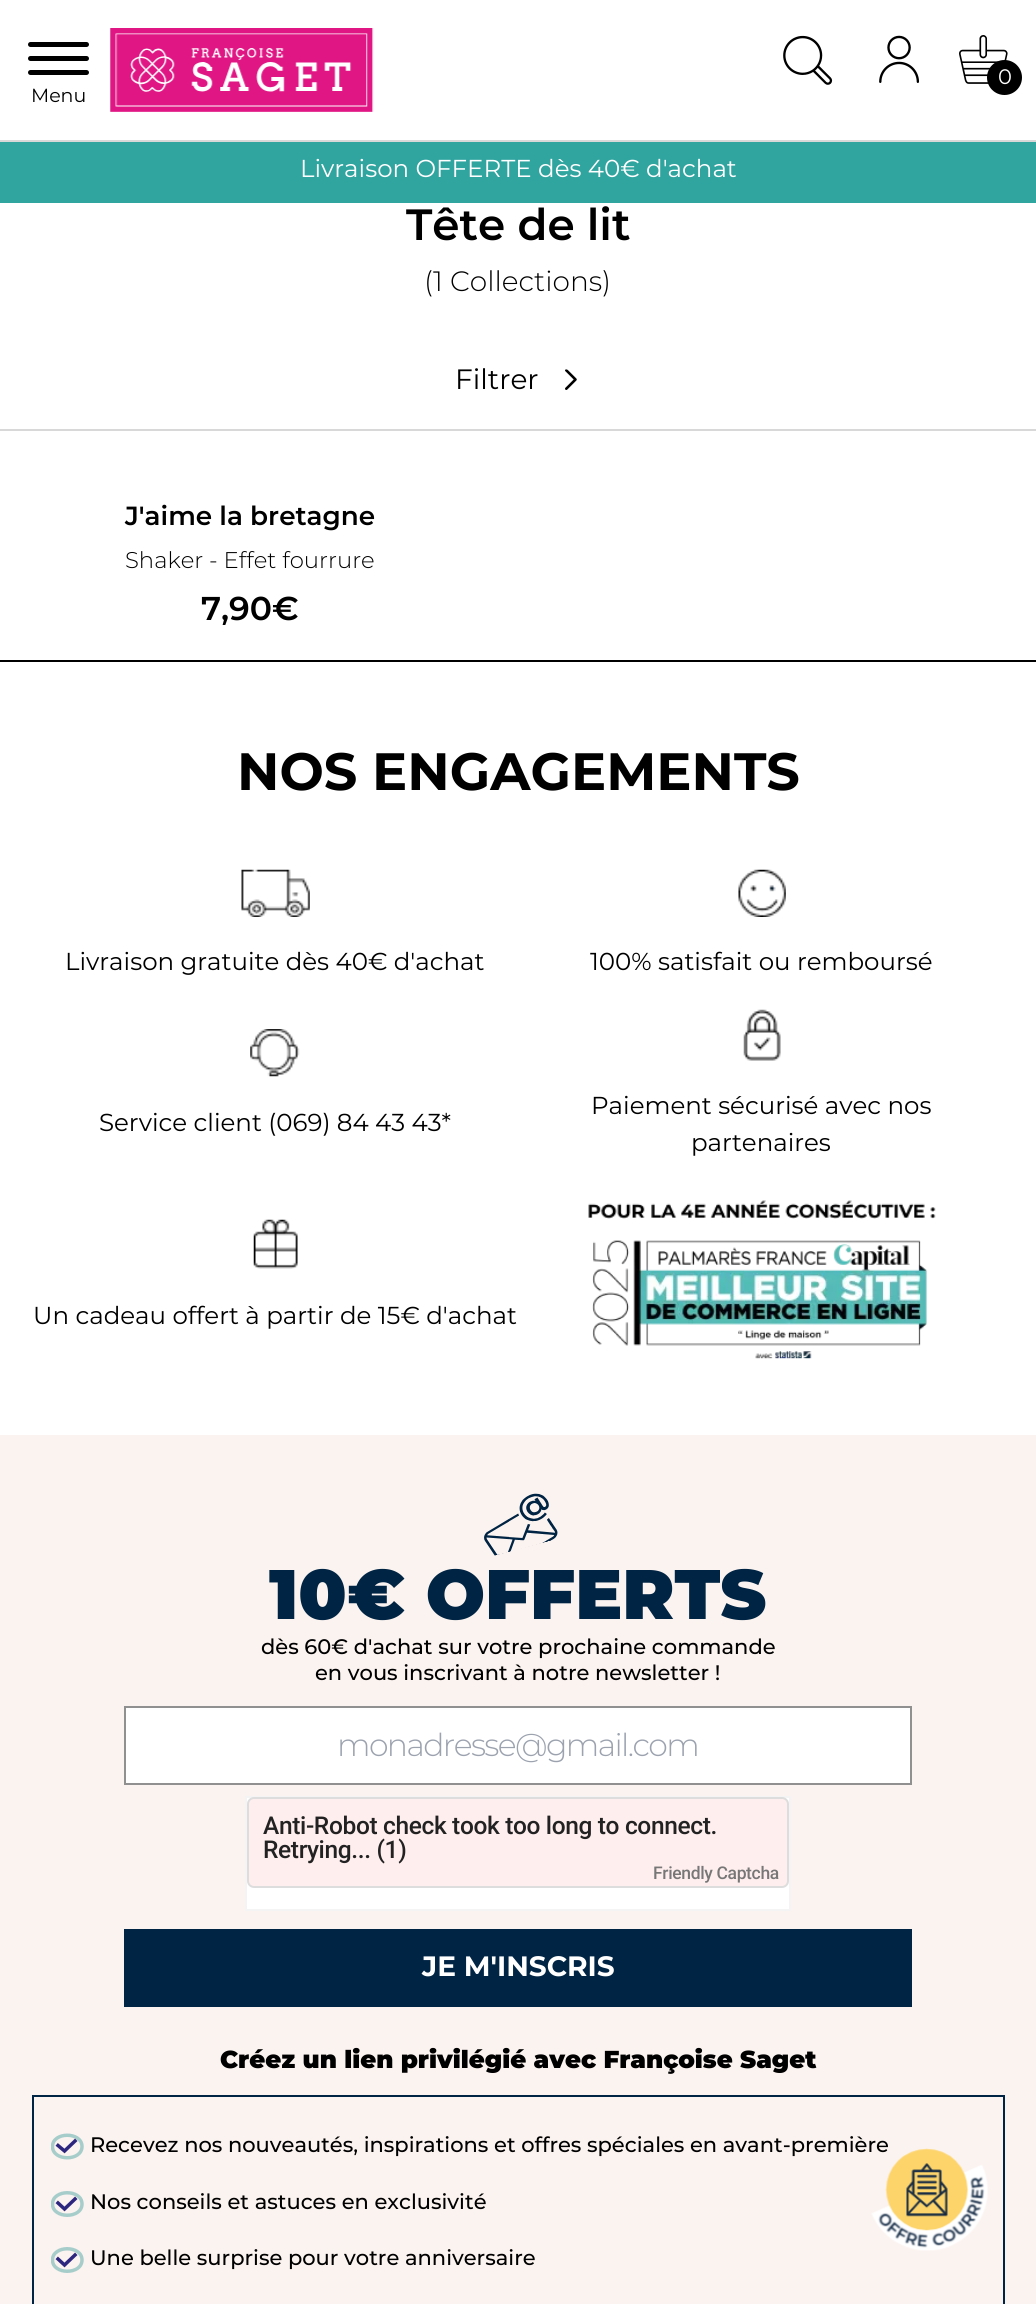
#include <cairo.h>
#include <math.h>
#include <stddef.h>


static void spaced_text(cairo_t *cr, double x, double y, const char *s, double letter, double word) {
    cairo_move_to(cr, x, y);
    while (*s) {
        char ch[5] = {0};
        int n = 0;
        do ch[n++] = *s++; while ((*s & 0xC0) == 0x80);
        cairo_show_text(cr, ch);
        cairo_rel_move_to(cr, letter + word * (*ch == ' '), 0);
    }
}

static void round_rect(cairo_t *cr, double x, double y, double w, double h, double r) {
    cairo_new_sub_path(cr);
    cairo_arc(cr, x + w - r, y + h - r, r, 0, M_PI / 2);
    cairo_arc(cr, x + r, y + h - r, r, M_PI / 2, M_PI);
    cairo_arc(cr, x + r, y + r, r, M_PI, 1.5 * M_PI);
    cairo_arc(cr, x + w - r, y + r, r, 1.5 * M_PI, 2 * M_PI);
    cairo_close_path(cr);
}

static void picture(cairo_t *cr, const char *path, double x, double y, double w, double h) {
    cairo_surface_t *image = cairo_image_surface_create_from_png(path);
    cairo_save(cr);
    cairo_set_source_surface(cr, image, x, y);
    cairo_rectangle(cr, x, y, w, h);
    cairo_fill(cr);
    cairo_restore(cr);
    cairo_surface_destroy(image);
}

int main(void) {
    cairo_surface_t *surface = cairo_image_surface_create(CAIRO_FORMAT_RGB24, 1036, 2304);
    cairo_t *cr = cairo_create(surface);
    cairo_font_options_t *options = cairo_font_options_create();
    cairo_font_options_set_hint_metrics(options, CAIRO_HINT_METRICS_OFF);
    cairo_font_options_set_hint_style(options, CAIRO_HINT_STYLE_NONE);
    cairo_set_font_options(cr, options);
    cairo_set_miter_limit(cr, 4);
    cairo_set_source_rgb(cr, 1, 1, 1);
    cairo_paint(cr);
    cairo_set_source_rgb(cr, 0.847, 0.847, 0.847);
    cairo_rectangle(cr, 0, 140, 1036, 2);
    cairo_fill(cr);
    picture(cr, "img1.png", 110, 28, 264, 84);
    picture(cr, "img2.png", 783, 35, 50, 50);
    picture(cr, "img3.png", 879, 35, 40, 48);
    picture(cr, "img4.png", 959, 35, 49, 49);
    cairo_set_source_rgb(cr, 0, 0, 0);
    cairo_arc(cr, 1004.5, 77.5, 17.5, 0, 2 * M_PI);
    cairo_fill(cr);
    cairo_select_font_face(cr, "Montserrat", CAIRO_FONT_SLANT_NORMAL, CAIRO_FONT_WEIGHT_NORMAL);
    cairo_set_font_size(cr, 21);
    cairo_set_source_rgb(cr, 1, 1, 1);
    cairo_move_to(cr, 998, 84);
    cairo_show_text(cr, "0");
    cairo_set_source_rgb(cr, 0, 0, 0);
    round_rect(cr, 28, 42, 61, 5, 2.5);
    cairo_fill(cr);
    round_rect(cr, 28, 56, 61, 5, 2.5);
    cairo_fill(cr);
    round_rect(cr, 28, 70, 61, 5, 2.5);
    cairo_fill(cr);
    cairo_set_font_size(cr, 19);
    cairo_move_to(cr, 31, 102);
    cairo_show_text(cr, "Menu");
    cairo_set_source_rgb(cr, 0.188, 0.643, 0.624);
    cairo_rectangle(cr, 0, 142, 1036, 61);
    cairo_fill(cr);
    cairo_set_font_size(cr, 24.5);
    cairo_set_source_rgb(cr, 1, 1, 1);
    cairo_move_to(cr, 300, 177);
    cairo_show_text(cr, "Livraison OFFERTE dès 40€ d'achat");
    cairo_select_font_face(cr, "Montserrat SemiBold", CAIRO_FONT_SLANT_NORMAL, CAIRO_FONT_WEIGHT_NORMAL);
    cairo_set_font_size(cr, 43.75);
    cairo_set_source_rgb(cr, 0, 0, 0);
    cairo_move_to(cr, 406, 240);
    cairo_show_text(cr, "Tête de lit");
    cairo_select_font_face(cr, "Montserrat Light", CAIRO_FONT_SLANT_NORMAL, CAIRO_FONT_WEIGHT_NORMAL);
    cairo_set_font_size(cr, 28);
    cairo_move_to(cr, 424, 291);
    cairo_show_text(cr, "(1 Collections)");
    cairo_set_source_rgb(cr, 0.847, 0.847, 0.847);
    cairo_rectangle(cr, 0, 429, 1036, 2);
    cairo_fill(cr);
    cairo_select_font_face(cr, "Montserrat", CAIRO_FONT_SLANT_NORMAL, CAIRO_FONT_WEIGHT_NORMAL);
    cairo_set_source_rgb(cr, 0, 0, 0);
    cairo_move_to(cr, 455, 389);
    cairo_show_text(cr, "Filtrer");
    picture(cr, "img5.png", 565, 369, 12, 21);
    cairo_select_font_face(cr, "Montserrat SemiBold", CAIRO_FONT_SLANT_NORMAL, CAIRO_FONT_WEIGHT_NORMAL);
    cairo_set_font_size(cr, 26.25);
    cairo_move_to(cr, 125, 525);
    cairo_show_text(cr, "J'aime la bretagne");
    cairo_select_font_face(cr, "Montserrat Light", CAIRO_FONT_SLANT_NORMAL, CAIRO_FONT_WEIGHT_NORMAL);
    cairo_set_font_size(cr, 22.75);
    cairo_move_to(cr, 125, 568);
    cairo_show_text(cr, "Shaker - Effet fourrure");
    cairo_select_font_face(cr, "Montserrat SemiBold", CAIRO_FONT_SLANT_NORMAL, CAIRO_FONT_WEIGHT_NORMAL);
    cairo_set_font_size(cr, 33);
    cairo_move_to(cr, 201, 620);
    cairo_show_text(cr, "7,90€");
    cairo_rectangle(cr, 0, 660, 1036, 2);
    cairo_fill(cr);
    cairo_select_font_face(cr, "Montserrat", CAIRO_FONT_SLANT_NORMAL, CAIRO_FONT_WEIGHT_BOLD);
    cairo_set_font_size(cr, 52.5);
    cairo_move_to(cr, 237, 790);
    cairo_show_text(cr, "NOS ENGAGEMENTS");
    picture(cr, "img6.png", 241, 869, 69, 48);
    cairo_select_font_face(cr, "Montserrat", CAIRO_FONT_SLANT_NORMAL, CAIRO_FONT_WEIGHT_NORMAL);
    cairo_set_font_size(cr, 24.5);
    cairo_move_to(cr, 65, 970);
    cairo_show_text(cr, "Livraison gratuite dès 40€ d'achat");
    picture(cr, "img7.png", 738, 869, 48, 48);
    cairo_move_to(cr, 590, 970);
    cairo_show_text(cr, "100% satisfait ou remboursé");
    picture(cr, "img8.png", 250, 1029, 50, 48);
    cairo_move_to(cr, 99, 1131);
    cairo_show_text(cr, "Service client (069) 84 43 43*");
    picture(cr, "img9.png", 743, 1009, 38, 52);
    cairo_move_to(cr, 591, 1114);
    cairo_show_text(cr, "Paiement sécurisé avec nos");
    cairo_move_to(cr, 691, 1151);
    cairo_show_text(cr, "partenaires");
    picture(cr, "img10.png", 253, 1219, 45, 50);
    cairo_move_to(cr, 33, 1324);
    cairo_show_text(cr, "Un cadeau offert à partir de 15€ d'achat");
    picture(cr, "img11.png", 588, 1200, 348, 159);
    cairo_set_source_rgb(cr, 0.984, 0.953, 0.941);
    cairo_rectangle(cr, 0, 1435, 1036, 869);
    cairo_fill(cr);
    picture(cr, "img12.png", 484, 1493, 74, 63);
    cairo_select_font_face(cr, "Montserrat Black", CAIRO_FONT_SLANT_NORMAL, CAIRO_FONT_WEIGHT_NORMAL);
    cairo_set_font_size(cr, 70);
    cairo_set_source_rgb(cr, 0, 0.141, 0.263);
    cairo_move_to(cr, 269, 1619);
    cairo_show_text(cr, "10€ OFFERTS");
    cairo_select_font_face(cr, "Montserrat Medium", CAIRO_FONT_SLANT_NORMAL, CAIRO_FONT_WEIGHT_NORMAL);
    cairo_set_font_size(cr, 21);
    cairo_set_source_rgb(cr, 0, 0, 0);
    cairo_move_to(cr, 261, 1654);
    cairo_show_text(cr, "dès 60€ d'achat sur votre prochaine commande");
    cairo_move_to(cr, 315, 1680);
    cairo_show_text(cr, "en vous inscrivant à notre newsletter !");
    cairo_set_source_rgb(cr, 1, 1, 1);
    cairo_rectangle(cr, 125, 1707, 786, 77);
    cairo_fill_preserve(cr);
    cairo_set_source_rgb(cr, 0.565, 0.565, 0.565);
    cairo_stroke(cr);
    cairo_select_font_face(cr, "Montserrat Light", CAIRO_FONT_SLANT_NORMAL, CAIRO_FONT_WEIGHT_NORMAL);
    cairo_set_font_size(cr, 31.5);
    cairo_set_source_rgb(cr, 0.612, 0.639, 0.686);
    spaced_text(cr, 337, 1756, "monadresse@gmail.com", -1.6, 0);
    cairo_set_source_rgb(cr, 1, 1, 1);
    cairo_rectangle(cr, 246, 1797, 544, 113);
    cairo_fill_preserve(cr);
    cairo_set_source_rgb(cr, 0.957, 0.957, 0.957);
    cairo_stroke(cr);
    cairo_set_source_rgb(cr, 1, 0.933, 0.933);
    round_rect(cr, 248, 1798, 540, 89, 6);
    cairo_fill_preserve(cr);
    cairo_set_source_rgb(cr, 0.867, 0.867, 0.867);
    cairo_stroke(cr);
    cairo_select_font_face(cr, "Roboto Medium", CAIRO_FONT_SLANT_NORMAL, CAIRO_FONT_WEIGHT_NORMAL);
    cairo_set_font_size(cr, 24.5);
    cairo_set_source_rgb(cr, 0.133, 0.133, 0.133);
    spaced_text(cr, 263, 1834, "Anti-Robot check took too long to connect.", -0.35, 0);
    spaced_text(cr, 263, 1858, "Retrying... (1)", -0.35, 0);
    cairo_set_font_size(cr, 17.5);
    cairo_set_source_rgb(cr, 0.467, 0.467, 0.467);
    spaced_text(cr, 653, 1879, "Friendly Captcha", -0.35, 0);
    cairo_set_source_rgb(cr, 0, 0.141, 0.263);
    cairo_rectangle(cr, 124, 1929, 788, 78);
    cairo_fill(cr);
    cairo_select_font_face(cr, "Montserrat", CAIRO_FONT_SLANT_NORMAL, CAIRO_FONT_WEIGHT_BOLD);
    cairo_set_font_size(cr, 28);
    cairo_set_source_rgb(cr, 1, 1, 1);
    cairo_move_to(cr, 422, 1976);
    cairo_show_text(cr, "JE M'INSCRIS");
    cairo_select_font_face(cr, "Montserrat Black", CAIRO_FONT_SLANT_NORMAL, CAIRO_FONT_WEIGHT_NORMAL);
    cairo_set_font_size(cr, 24.5);
    cairo_set_source_rgb(cr, 0, 0, 0);
    cairo_move_to(cr, 220, 2068);
    cairo_show_text(cr, "Créez un lien privilégié avec Françoise Saget");
    cairo_rectangle(cr, 33, 2096, 971, 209);
    cairo_set_source_rgb(cr, 0, 0.141, 0.263);
    cairo_stroke(cr);
    cairo_save(cr);
    cairo_rectangle(cr, 51, 2133, 33, 27);
    cairo_clip(cr);
    cairo_new_path(cr);
    cairo_move_to(cr, 82, 2146.5);
    cairo_curve_to(cr, 82, 2161.5, 52.5, 2161.5, 52.5, 2146.5);
    cairo_curve_to(cr, 52.5, 2131.5, 82, 2131.5, 82, 2146.5);
    cairo_close_path(cr);
    cairo_set_source_rgb(cr, 0.655, 0.804, 0.796);
    cairo_set_line_width(cr, 3.5);
    cairo_stroke(cr);
    cairo_restore(cr);
    cairo_new_path(cr);
    cairo_move_to(cr, 58, 2145.5);
    cairo_line_to(cr, 64.5, 2151);
    cairo_line_to(cr, 75, 2141);
    cairo_set_source_rgb(cr, 0.176, 0.149, 0.494);
    cairo_set_line_width(cr, 3.5);
    cairo_set_line_cap(cr, CAIRO_LINE_CAP_SQUARE);
    cairo_stroke(cr);
    cairo_select_font_face(cr, "Montserrat Medium", CAIRO_FONT_SLANT_NORMAL, CAIRO_FONT_WEIGHT_NORMAL);
    cairo_set_font_size(cr, 21);
    cairo_set_source_rgb(cr, 0, 0, 0);
    cairo_move_to(cr, 90, 2152);
    cairo_show_text(cr, "Recevez nos nouveautés, inspirations et offres spéciales en avant-première");
    cairo_save(cr);
    cairo_rectangle(cr, 51, 2191, 33, 26);
    cairo_clip(cr);
    cairo_new_path(cr);
    cairo_move_to(cr, 82, 2204);
    cairo_curve_to(cr, 82, 2219, 52.5, 2219, 52.5, 2204);
    cairo_curve_to(cr, 52.5, 2189, 82, 2189, 82, 2204);
    cairo_close_path(cr);
    cairo_set_source_rgb(cr, 0.655, 0.804, 0.796);
    cairo_set_line_cap(cr, CAIRO_LINE_CAP_BUTT);
    cairo_stroke(cr);
    cairo_restore(cr);
    cairo_new_path(cr);
    cairo_move_to(cr, 58, 2203);
    cairo_line_to(cr, 64.5, 2209);
    cairo_line_to(cr, 75, 2199);
    cairo_set_source_rgb(cr, 0.176, 0.149, 0.494);
    cairo_stroke(cr);
    cairo_set_source_rgb(cr, 0, 0, 0);
    cairo_move_to(cr, 90, 2209);
    cairo_show_text(cr, "Nos conseils et astuces en exclusivité");
    cairo_save(cr);
    cairo_rectangle(cr, 51, 2247, 33, 26);
    cairo_clip(cr);
    cairo_new_path(cr);
    cairo_move_to(cr, 82, 2260);
    cairo_curve_to(cr, 82, 2275, 52.5, 2275, 52.5, 2260);
    cairo_curve_to(cr, 52.5, 2245, 82, 2245, 82, 2260);
    cairo_close_path(cr);
    cairo_set_source_rgb(cr, 0.655, 0.804, 0.796);
    cairo_set_line_cap(cr, CAIRO_LINE_CAP_BUTT);
    cairo_stroke(cr);
    cairo_restore(cr);
    cairo_new_path(cr);
    cairo_move_to(cr, 58, 2259);
    cairo_line_to(cr, 64.5, 2265);
    cairo_line_to(cr, 75, 2255);
    cairo_set_source_rgb(cr, 0.176, 0.149, 0.494);
    cairo_stroke(cr);
    cairo_set_source_rgb(cr, 0, 0, 0);
    cairo_move_to(cr, 90, 2265);
    cairo_show_text(cr, "Une belle surprise pour votre anniversaire");
    picture(cr, "img13.png", 871, 2148, 117, 103);
    cairo_surface_write_to_png(surface, "page.png");
    cairo_font_options_destroy(options);
    cairo_destroy(cr);
    cairo_surface_destroy(surface);
    return 0;
}
